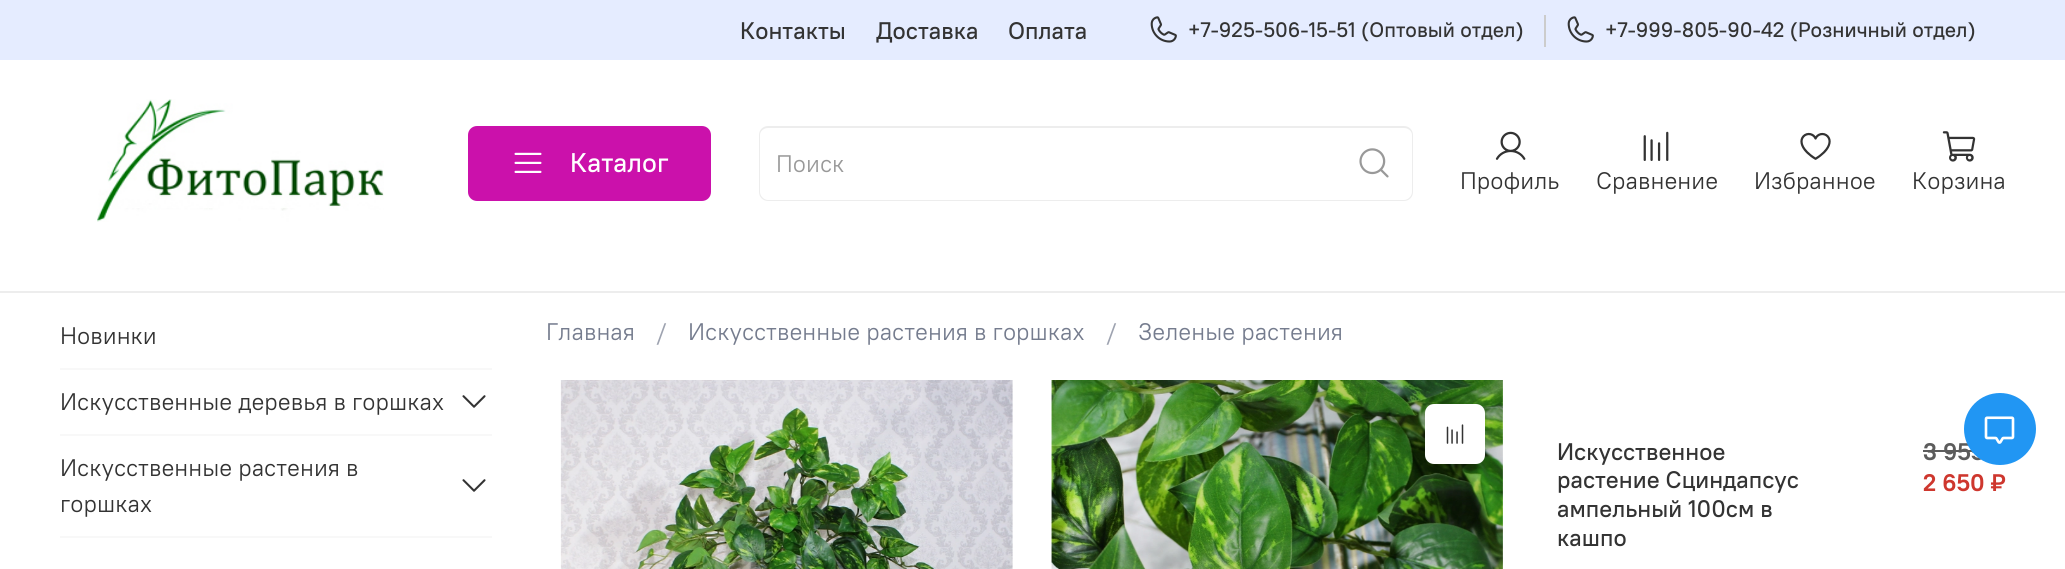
#include <cairo.h>
#include <math.h>
#include <stddef.h>


static void round_rect(cairo_t *cr, double x, double y, double w, double h, double r) {
    cairo_new_sub_path(cr);
    cairo_arc(cr, x + w - r, y + h - r, r, 0, M_PI / 2);
    cairo_arc(cr, x + r, y + h - r, r, M_PI / 2, M_PI);
    cairo_arc(cr, x + r, y + r, r, M_PI, 1.5 * M_PI);
    cairo_arc(cr, x + w - r, y + r, r, 1.5 * M_PI, 2 * M_PI);
    cairo_close_path(cr);
}

static void picture(cairo_t *cr, const char *path, double x, double y, double w, double h) {
    cairo_surface_t *image = cairo_image_surface_create_from_png(path);
    cairo_save(cr);
    cairo_set_source_surface(cr, image, x, y);
    cairo_rectangle(cr, x, y, w, h);
    cairo_fill(cr);
    cairo_restore(cr);
    cairo_surface_destroy(image);
}

int main(void) {
    cairo_surface_t *surface = cairo_image_surface_create(CAIRO_FORMAT_RGB24, 2065, 569);
    cairo_t *cr = cairo_create(surface);
    cairo_font_options_t *options = cairo_font_options_create();
    cairo_font_options_set_hint_metrics(options, CAIRO_HINT_METRICS_OFF);
    cairo_font_options_set_hint_style(options, CAIRO_HINT_STYLE_NONE);
    cairo_set_font_options(cr, options);
    cairo_set_miter_limit(cr, 4);
    cairo_set_source_rgb(cr, 1, 1, 1);
    cairo_paint(cr);
    cairo_set_source_rgb(cr, 0.898, 0.922, 1);
    cairo_rectangle(cr, 0, 0, 2065, 60);
    cairo_fill(cr);
    cairo_select_font_face(cr, "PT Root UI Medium", CAIRO_FONT_SLANT_NORMAL, CAIRO_FONT_WEIGHT_NORMAL);
    cairo_set_font_size(cr, 24);
    cairo_set_source_rgb(cr, 0.2, 0.2, 0.2);
    cairo_move_to(cr, 740, 39);
    cairo_show_text(cr, "Контакты");
    cairo_move_to(cr, 876, 39);
    cairo_show_text(cr, "Доставка");
    cairo_move_to(cr, 1008, 39);
    cairo_show_text(cr, "Оплата");
    cairo_set_source_rgb(cr, 0.8, 0.8, 0.8);
    cairo_rectangle(cr, 1544, 15, 2, 32);
    cairo_fill(cr);
    picture(cr, "img1.png", 1150, 16, 27, 27);
    cairo_set_font_size(cr, 21);
    cairo_set_source_rgb(cr, 0.2, 0.2, 0.2);
    cairo_move_to(cr, 1188, 37);
    cairo_show_text(cr, "+7-925-506-15-51 (Оптовый отдел)");
    picture(cr, "img1.png", 1567, 16, 27, 27);
    cairo_move_to(cr, 1605, 37);
    cairo_show_text(cr, "+7-999-805-90-42 (Розничный отдел)");
    cairo_set_source_rgb(cr, 0.929, 0.929, 0.929);
    cairo_rectangle(cr, 0, 291, 2065, 2);
    cairo_fill(cr);
    picture(cr, "img2.png", 97, 99, 287, 123);
    cairo_set_source_rgb(cr, 0.796, 0.067, 0.671);
    round_rect(cr, 468, 126, 243, 75, 9);
    cairo_fill(cr);
    picture(cr, "img3.png", 514, 152, 28, 21);
    cairo_set_font_size(cr, 27);
    cairo_set_source_rgb(cr, 1, 1, 1);
    cairo_move_to(cr, 570, 172);
    cairo_show_text(cr, "Каталог");
    cairo_set_source_rgb(cr, 0.929, 0.929, 0.929);
    cairo_set_fill_rule(cr, CAIRO_FILL_RULE_EVEN_ODD);
    cairo_new_path(cr);
    cairo_move_to(cr, 768, 126);
    cairo_line_to(cr, 1338, 126);
    cairo_line_to(cr, 1338, 201);
    cairo_line_to(cr, 768, 201);
    cairo_curve_to(cr, 763, 201, 759, 197, 759, 192);
    cairo_line_to(cr, 759, 135);
    cairo_curve_to(cr, 759, 130, 763, 126, 768, 126);
    cairo_close_path(cr);
    cairo_move_to(cr, 768, 128);
    cairo_line_to(cr, 1338, 128);
    cairo_line_to(cr, 1338, 200);
    cairo_line_to(cr, 768, 200);
    cairo_curve_to(cr, 764, 200, 760, 196, 760, 192);
    cairo_line_to(cr, 760, 135);
    cairo_curve_to(cr, 760, 131, 764, 128, 768, 128);
    cairo_close_path(cr);
    cairo_fill(cr);
    cairo_select_font_face(cr, "PT Root UI", CAIRO_FONT_SLANT_NORMAL, CAIRO_FONT_WEIGHT_NORMAL);
    cairo_set_font_size(cr, 24);
    cairo_set_source_rgb(cr, 0.6, 0.6, 0.6);
    cairo_move_to(cr, 776, 172);
    cairo_show_text(cr, "Поиск");
    cairo_set_source_rgb(cr, 0.929, 0.929, 0.929);
    cairo_new_path(cr);
    cairo_move_to(cr, 1338, 126);
    cairo_line_to(cr, 1404, 126);
    cairo_curve_to(cr, 1409, 126, 1413, 130, 1413, 135);
    cairo_line_to(cr, 1413, 192);
    cairo_curve_to(cr, 1413, 197, 1409, 201, 1404, 201);
    cairo_line_to(cr, 1338, 201);
    cairo_close_path(cr);
    cairo_move_to(cr, 1338, 128);
    cairo_line_to(cr, 1404, 128);
    cairo_curve_to(cr, 1408, 128, 1412, 131, 1412, 135);
    cairo_line_to(cr, 1412, 192);
    cairo_curve_to(cr, 1412, 196, 1408, 200, 1404, 200);
    cairo_line_to(cr, 1338, 200);
    cairo_close_path(cr);
    cairo_fill(cr);
    picture(cr, "img4.png", 1359, 148, 30, 30);
    picture(cr, "img5.png", 1495, 131, 31, 29);
    cairo_set_source_rgb(cr, 0.2, 0.2, 0.2);
    cairo_move_to(cr, 1460, 189);
    cairo_show_text(cr, "Профиль");
    picture(cr, "img6.png", 1643, 131, 26, 30);
    cairo_move_to(cr, 1596, 189);
    cairo_show_text(cr, "Сравнение");
    picture(cr, "img7.png", 1800, 132, 31, 28);
    cairo_move_to(cr, 1754, 189);
    cairo_show_text(cr, "Избранное");
    picture(cr, "img8.png", 1942, 131, 34, 31);
    cairo_move_to(cr, 1912, 189);
    cairo_show_text(cr, "Корзина");
    cairo_set_source_rgb(cr, 0.969, 0.969, 0.969);
    cairo_rectangle(cr, 60, 368, 432, 2);
    cairo_fill(cr);
    cairo_set_source_rgb(cr, 0.2, 0.2, 0.2);
    cairo_move_to(cr, 60, 344);
    cairo_show_text(cr, "Новинки");
    cairo_set_source_rgb(cr, 0.969, 0.969, 0.969);
    cairo_rectangle(cr, 60, 434, 432, 2);
    cairo_fill(cr);
    cairo_set_source_rgb(cr, 0.2, 0.2, 0.2);
    cairo_move_to(cr, 60, 410);
    cairo_show_text(cr, "Искусственные деревья в горшках");
    picture(cr, "img9.png", 462, 395, 24, 13);
    cairo_set_source_rgb(cr, 0.969, 0.969, 0.969);
    cairo_rectangle(cr, 60, 536, 432, 2);
    cairo_fill(cr);
    cairo_set_source_rgb(cr, 0.2, 0.2, 0.2);
    cairo_move_to(cr, 60, 476);
    cairo_show_text(cr, "Искусственные растения в");
    cairo_move_to(cr, 60, 512);
    cairo_show_text(cr, "горшках");
    picture(cr, "img9.png", 462, 479, 24, 13);
    cairo_set_source_rgb(cr, 0.459, 0.486, 0.557);
    cairo_move_to(cr, 546, 340);
    cairo_show_text(cr, "Главная");
    cairo_set_source_rgb(cr, 0.62, 0.639, 0.69);
    cairo_move_to(cr, 656, 340);
    cairo_show_text(cr, "/");
    cairo_set_source_rgb(cr, 0.459, 0.486, 0.557);
    cairo_move_to(cr, 688, 340);
    cairo_show_text(cr, "Искусственные растения в горшках");
    cairo_set_source_rgb(cr, 0.62, 0.639, 0.69);
    cairo_move_to(cr, 1106, 340);
    cairo_show_text(cr, "/");
    cairo_set_source_rgb(cr, 0.459, 0.486, 0.557);
    cairo_move_to(cr, 1138, 340);
    cairo_show_text(cr, "Зеленые растения");
    picture(cr, "img10.png", 560, 380, 453, 189);
    picture(cr, "img11.png", 1051, 380, 452, 189);
    cairo_set_source_rgb(cr, 1, 1, 1);
    round_rect(cr, 1425, 404, 60, 60, 9);
    cairo_fill(cr);
    picture(cr, "img12.png", 1446, 424, 18, 20);
    cairo_select_font_face(cr, "PT Root UI Medium", CAIRO_FONT_SLANT_NORMAL, CAIRO_FONT_WEIGHT_NORMAL);
    cairo_set_source_rgb(cr, 0.2, 0.2, 0.2);
    cairo_move_to(cr, 1557, 460);
    cairo_show_text(cr, "Искусственное");
    cairo_move_to(cr, 1557, 488);
    cairo_show_text(cr, "растение Сциндапсус");
    cairo_move_to(cr, 1557, 517);
    cairo_show_text(cr, "ампельный 100см в");
    cairo_move_to(cr, 1557, 546);
    cairo_show_text(cr, "кашпо");
    cairo_select_font_face(cr, "PT Root UI", CAIRO_FONT_SLANT_NORMAL, CAIRO_FONT_WEIGHT_BOLD);
    cairo_set_source_rgb(cr, 0.361, 0.361, 0.361);
    cairo_move_to(cr, 1923, 460);
    cairo_show_text(cr, "3 955");
    cairo_rectangle(cr, 1923, 450, 50, 2);
    cairo_fill(cr);
    cairo_set_source_rgb(cr, 0.808, 0.216, 0.18);
    cairo_move_to(cr, 1923, 491);
    cairo_show_text(cr, "2 650 ₽");
    cairo_set_source_rgb(cr, 0.129, 0.588, 0.953);
    cairo_new_path(cr);
    cairo_arc(cr, 2000, 429, 36, 0, 2 * M_PI);
    cairo_fill(cr);
    picture(cr, "img13.png", 1984, 416, 31, 28);
    cairo_surface_write_to_png(surface, "page.png");
    cairo_font_options_destroy(options);
    cairo_destroy(cr);
    cairo_surface_destroy(surface);
    return 0;
}
